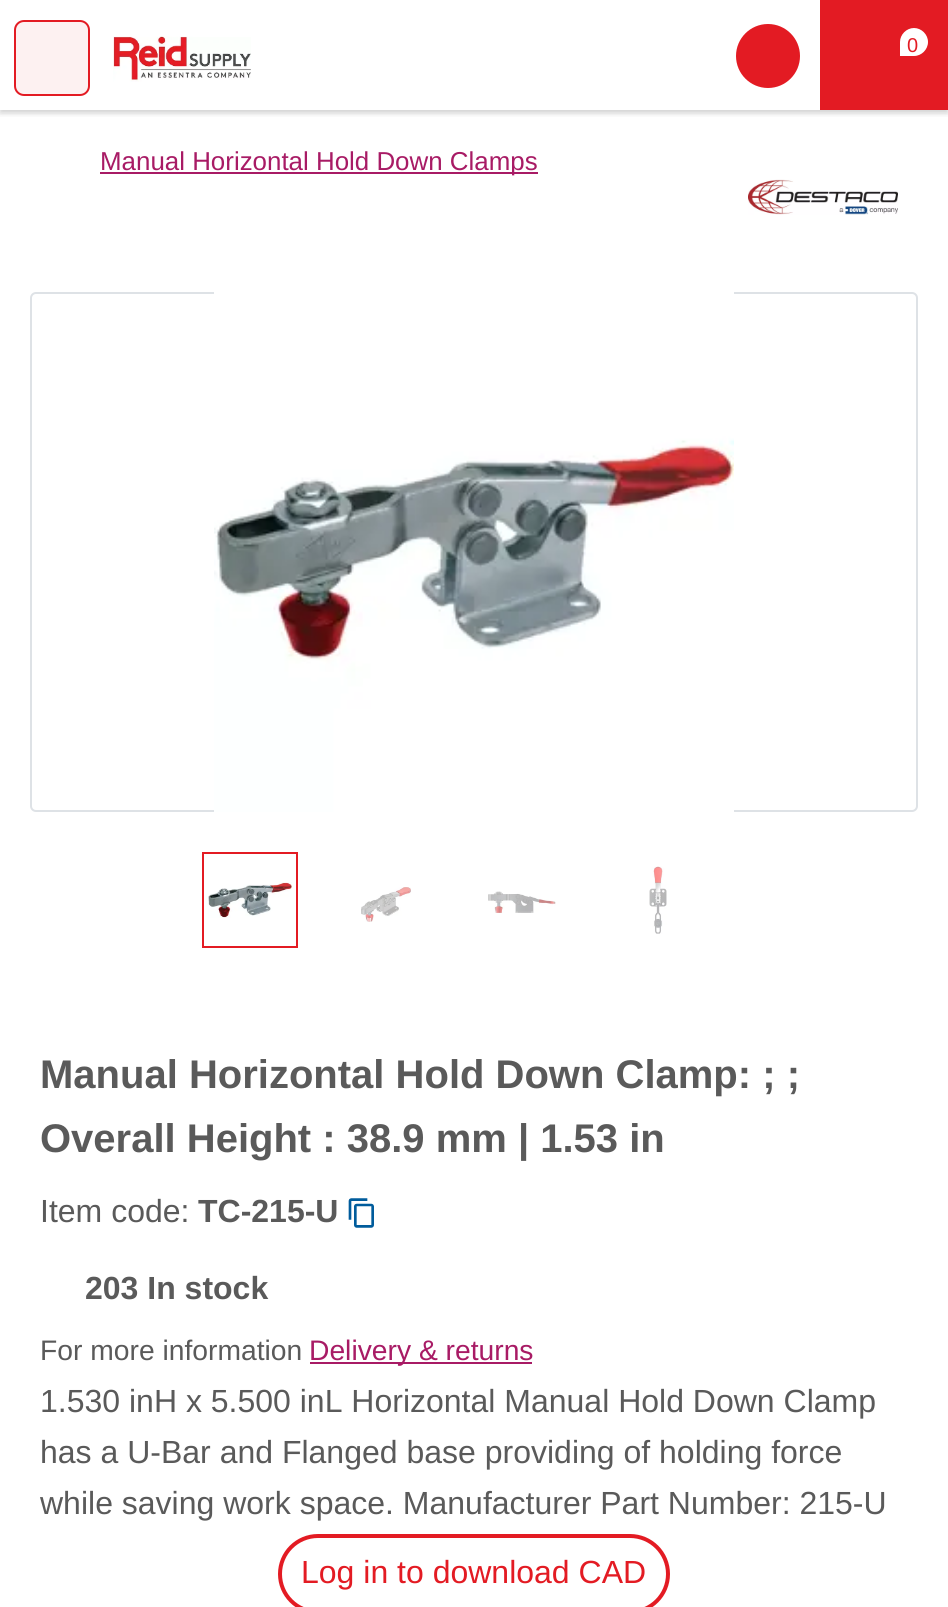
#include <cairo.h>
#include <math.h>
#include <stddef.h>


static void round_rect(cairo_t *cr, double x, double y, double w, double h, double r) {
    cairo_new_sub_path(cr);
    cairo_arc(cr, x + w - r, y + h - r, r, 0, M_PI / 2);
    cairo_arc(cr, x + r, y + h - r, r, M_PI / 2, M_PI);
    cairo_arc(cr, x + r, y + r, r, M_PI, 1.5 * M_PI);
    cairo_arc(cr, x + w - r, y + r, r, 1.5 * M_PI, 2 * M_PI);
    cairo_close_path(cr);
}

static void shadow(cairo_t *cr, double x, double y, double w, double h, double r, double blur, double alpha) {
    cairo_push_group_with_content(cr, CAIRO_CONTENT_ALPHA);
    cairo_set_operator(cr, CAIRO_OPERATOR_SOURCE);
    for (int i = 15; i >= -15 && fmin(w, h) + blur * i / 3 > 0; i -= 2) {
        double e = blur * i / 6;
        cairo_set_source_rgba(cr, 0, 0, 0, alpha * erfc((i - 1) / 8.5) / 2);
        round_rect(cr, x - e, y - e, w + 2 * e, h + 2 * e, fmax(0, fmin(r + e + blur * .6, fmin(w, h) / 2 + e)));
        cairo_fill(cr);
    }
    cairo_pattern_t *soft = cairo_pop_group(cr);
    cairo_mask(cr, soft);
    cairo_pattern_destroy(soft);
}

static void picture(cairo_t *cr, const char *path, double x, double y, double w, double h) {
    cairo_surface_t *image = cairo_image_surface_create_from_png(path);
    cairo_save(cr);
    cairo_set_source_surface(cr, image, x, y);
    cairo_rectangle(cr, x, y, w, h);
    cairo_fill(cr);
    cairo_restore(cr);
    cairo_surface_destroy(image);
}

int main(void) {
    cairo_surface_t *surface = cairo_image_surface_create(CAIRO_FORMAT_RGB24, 948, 1607);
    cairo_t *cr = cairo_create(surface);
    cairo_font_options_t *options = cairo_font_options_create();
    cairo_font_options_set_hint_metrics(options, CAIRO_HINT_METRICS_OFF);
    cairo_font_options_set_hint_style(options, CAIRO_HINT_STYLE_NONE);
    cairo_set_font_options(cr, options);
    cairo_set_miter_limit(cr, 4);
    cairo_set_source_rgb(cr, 1, 1, 1);
    cairo_paint(cr);
    cairo_save(cr);
    cairo_rectangle(cr, 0, 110, 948, 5);
    cairo_clip(cr);
    cairo_set_source_rgb(cr, 0, 0, 0.004);
    shadow(cr, 0, 2, 948, 110, 0, 3, 0.1);
    cairo_restore(cr);
    cairo_save(cr);
    cairo_rectangle(cr, 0, 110, 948, 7);
    cairo_clip(cr);
    cairo_set_source_rgb(cr, 0, 0, 0.004);
    shadow(cr, 0, 4, 948, 110, 0, 3, 0.1);
    cairo_restore(cr);
    cairo_set_source_rgb(cr, 0.992, 0.945, 0.945);
    round_rect(cr, 15, 21, 74, 74, 9);
    cairo_fill_preserve(cr);
    cairo_set_source_rgb(cr, 0.89, 0.106, 0.137);
    cairo_stroke(cr);
    picture(cr, "img1.png", 113, 36, 138, 46);
    cairo_arc(cr, 768, 56, 32, 0, 2 * M_PI);
    cairo_fill(cr);
    cairo_rectangle(cr, 820, 0, 128, 110);
    cairo_fill(cr);
    cairo_set_source_rgb(cr, 1, 1, 1);
    cairo_new_path(cr);
    cairo_move_to(cr, 914, 28);
    cairo_curve_to(cr, 921.5, 28, 928, 34.5, 928, 42);
    cairo_curve_to(cr, 928, 49.5, 921.5, 56, 914, 56);
    cairo_line_to(cr, 900, 56);
    cairo_line_to(cr, 900, 42);
    cairo_curve_to(cr, 900, 34.5, 906.5, 28, 914, 28);
    cairo_close_path(cr);
    cairo_fill(cr);
    cairo_select_font_face(cr, "Liberation Sans", CAIRO_FONT_SLANT_NORMAL, CAIRO_FONT_WEIGHT_NORMAL);
    cairo_set_font_size(cr, 20);
    cairo_set_source_rgb(cr, 0.89, 0.106, 0.137);
    cairo_move_to(cr, 907, 52);
    cairo_show_text(cr, "0");
    cairo_set_source_rgb(cr, 0.659, 0.106, 0.396);
    cairo_rectangle(cr, 100, 172, 438, 2);
    cairo_fill(cr);
    cairo_set_font_size(cr, 25.9);
    cairo_move_to(cr, 100, 170);
    cairo_show_text(cr, "Manual Horizontal Hold Down Clamps");
    picture(cr, "img2.png", 748, 179, 150, 36);
    round_rect(cr, 31, 293, 886, 518, 5);
    cairo_set_source_rgb(cr, 0.871, 0.886, 0.902);
    cairo_stroke(cr);
    picture(cr, "img3.png", 214, 292, 520, 520);
    cairo_rectangle(cr, 203, 853, 94, 94);
    cairo_set_source_rgb(cr, 0.89, 0.106, 0.137);
    cairo_stroke(cr);
    picture(cr, "img4.png", 208, 882, 84, 36);
    picture(cr, "img5.png", 361, 887, 50, 35);
    picture(cr, "img6.png", 488, 891, 68, 22);
    picture(cr, "img7.png", 649, 866, 18, 68);
    cairo_select_font_face(cr, "Liberation Sans", CAIRO_FONT_SLANT_NORMAL, CAIRO_FONT_WEIGHT_BOLD);
    cairo_set_font_size(cr, 40);
    cairo_set_source_rgb(cr, 0.353, 0.353, 0.353);
    cairo_move_to(cr, 40, 1088);
    cairo_show_text(cr, "Manual Horizontal Hold Down Clamp: ; ;");
    cairo_move_to(cr, 40, 1152);
    cairo_show_text(cr, "Overall Height : 38.9 mm | 1.53 in");
    cairo_select_font_face(cr, "Liberation Sans", CAIRO_FONT_SLANT_NORMAL, CAIRO_FONT_WEIGHT_NORMAL);
    cairo_set_font_size(cr, 32);
    cairo_move_to(cr, 40, 1222);
    cairo_show_text(cr, "Item code:");
    cairo_select_font_face(cr, "Liberation Sans", CAIRO_FONT_SLANT_NORMAL, CAIRO_FONT_WEIGHT_BOLD);
    cairo_move_to(cr, 198, 1222);
    cairo_show_text(cr, "TC-215-U");
    picture(cr, "img8.png", 348, 1198, 26, 30);
    cairo_move_to(cr, 85, 1299);
    cairo_show_text(cr, "203 In stock");
    cairo_select_font_face(cr, "Liberation Sans", CAIRO_FONT_SLANT_NORMAL, CAIRO_FONT_WEIGHT_NORMAL);
    cairo_set_font_size(cr, 28.25);
    cairo_move_to(cr, 40, 1360);
    cairo_show_text(cr, "For more information");
    cairo_set_source_rgb(cr, 0.659, 0.106, 0.396);
    cairo_rectangle(cr, 310, 1362, 222, 2);
    cairo_fill(cr);
    cairo_move_to(cr, 309, 1360);
    cairo_show_text(cr, "Delivery & returns");
    cairo_set_font_size(cr, 32);
    cairo_set_source_rgb(cr, 0.353, 0.353, 0.353);
    cairo_move_to(cr, 40, 1412);
    cairo_show_text(cr, "1.530 inH x 5.500 inL Horizontal Manual Hold Down Clamp");
    cairo_move_to(cr, 40, 1463);
    cairo_show_text(cr, "has a U-Bar and Flanged base providing of holding force");
    cairo_move_to(cr, 40, 1514);
    cairo_show_text(cr, "while saving work space. Manufacturer Part Number: 215-U");
    round_rect(cr, 280, 1536, 388, 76, 38);
    cairo_set_source_rgb(cr, 0.89, 0.106, 0.137);
    cairo_set_line_width(cr, 4);
    cairo_stroke(cr);
    cairo_move_to(cr, 301, 1583);
    cairo_show_text(cr, "Log in to download CAD");
    cairo_surface_write_to_png(surface, "page.png");
    cairo_font_options_destroy(options);
    cairo_destroy(cr);
    cairo_surface_destroy(surface);
    return 0;
}
